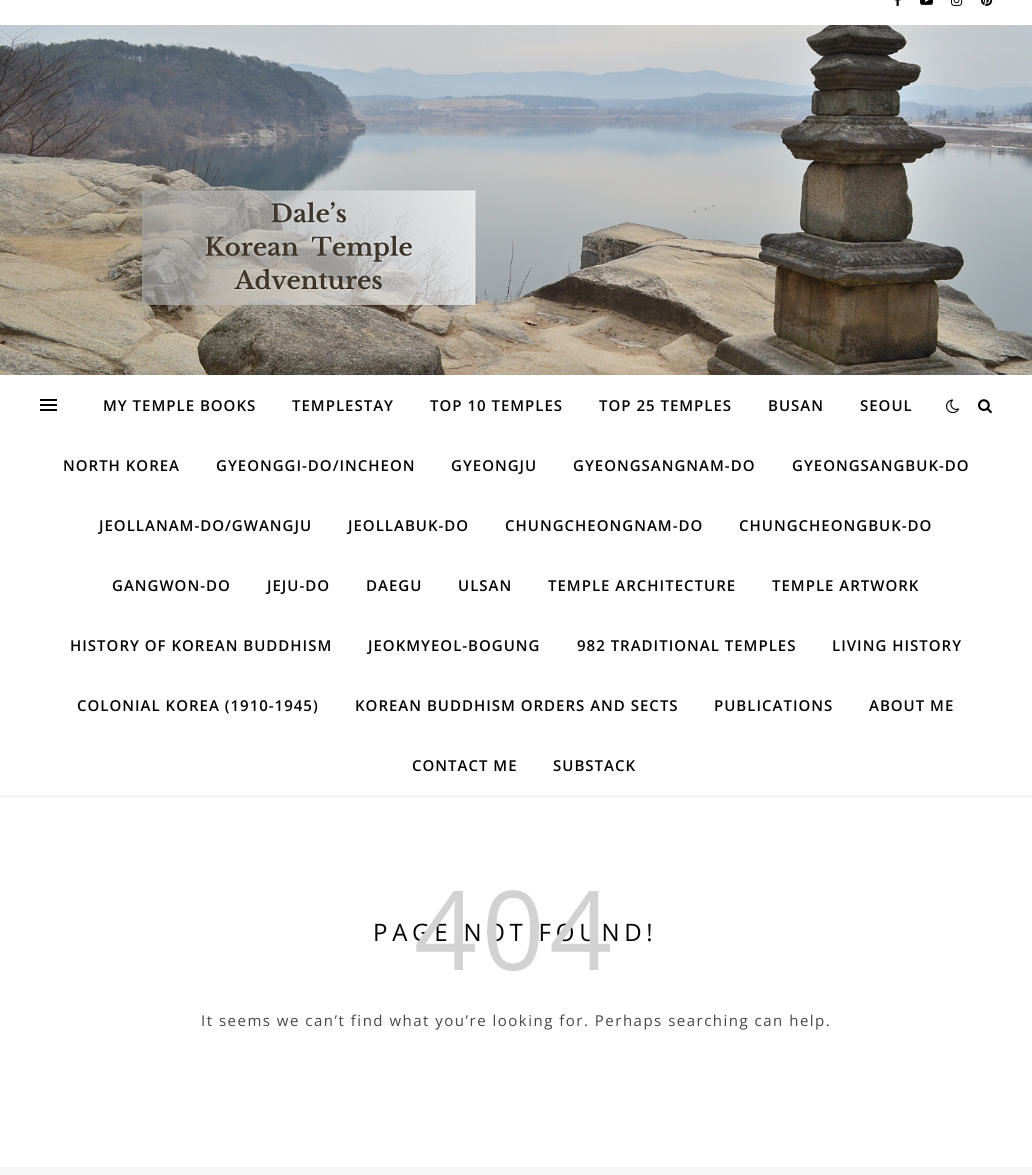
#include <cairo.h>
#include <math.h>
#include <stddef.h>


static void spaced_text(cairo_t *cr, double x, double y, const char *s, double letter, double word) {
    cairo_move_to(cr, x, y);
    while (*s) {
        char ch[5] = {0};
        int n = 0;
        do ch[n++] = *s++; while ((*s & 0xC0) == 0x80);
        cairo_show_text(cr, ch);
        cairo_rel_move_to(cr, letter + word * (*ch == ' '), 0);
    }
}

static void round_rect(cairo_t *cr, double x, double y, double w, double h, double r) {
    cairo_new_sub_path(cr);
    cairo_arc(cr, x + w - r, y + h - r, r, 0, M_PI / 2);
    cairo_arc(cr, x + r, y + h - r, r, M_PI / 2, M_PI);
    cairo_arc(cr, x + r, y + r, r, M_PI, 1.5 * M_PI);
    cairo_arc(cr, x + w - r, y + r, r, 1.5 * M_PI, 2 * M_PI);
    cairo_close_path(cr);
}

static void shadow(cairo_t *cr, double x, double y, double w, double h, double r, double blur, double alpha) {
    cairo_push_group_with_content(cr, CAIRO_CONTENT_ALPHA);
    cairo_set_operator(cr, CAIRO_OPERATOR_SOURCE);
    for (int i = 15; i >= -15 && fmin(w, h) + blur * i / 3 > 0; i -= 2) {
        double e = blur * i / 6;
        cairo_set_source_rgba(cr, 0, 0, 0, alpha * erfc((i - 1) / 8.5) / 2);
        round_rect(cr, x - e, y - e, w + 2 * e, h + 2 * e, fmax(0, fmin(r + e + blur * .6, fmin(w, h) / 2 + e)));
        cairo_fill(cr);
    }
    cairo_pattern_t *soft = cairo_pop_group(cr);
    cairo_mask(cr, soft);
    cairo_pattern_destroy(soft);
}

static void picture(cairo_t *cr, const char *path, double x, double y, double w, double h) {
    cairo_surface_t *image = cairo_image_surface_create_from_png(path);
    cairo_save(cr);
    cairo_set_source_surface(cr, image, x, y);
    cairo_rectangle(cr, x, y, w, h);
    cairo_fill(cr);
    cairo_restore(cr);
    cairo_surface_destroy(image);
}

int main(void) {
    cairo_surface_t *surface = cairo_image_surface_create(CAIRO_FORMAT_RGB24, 1032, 1175);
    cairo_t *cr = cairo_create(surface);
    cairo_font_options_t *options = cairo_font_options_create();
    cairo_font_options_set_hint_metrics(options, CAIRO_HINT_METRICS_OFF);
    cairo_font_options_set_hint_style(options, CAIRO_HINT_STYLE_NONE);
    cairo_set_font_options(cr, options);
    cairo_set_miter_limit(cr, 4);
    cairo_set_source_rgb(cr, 1, 1, 1);
    cairo_paint(cr);
    picture(cr, "img1.png", 894, 0, 7, 6);
    picture(cr, "img2.png", 920, 0, 13, 5);
    picture(cr, "img3.png", 951, 0, 12, 6);
    picture(cr, "img4.png", 981, 0, 12, 6);
    picture(cr, "img5.png", 0, 25, 1032, 350);
    cairo_save(cr);
    cairo_set_fill_rule(cr, CAIRO_FILL_RULE_EVEN_ODD);
    cairo_new_path(cr);
    cairo_move_to(cr, 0, 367);
    cairo_line_to(cr, 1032, 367);
    cairo_line_to(cr, 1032, 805);
    cairo_line_to(cr, 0, 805);
    cairo_close_path(cr);
    cairo_move_to(cr, 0, 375);
    cairo_line_to(cr, 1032, 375);
    cairo_line_to(cr, 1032, 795);
    cairo_line_to(cr, 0, 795);
    cairo_close_path(cr);
    cairo_clip(cr);
    cairo_set_source_rgb(cr, 0, 0, 0);
    shadow(cr, 0, 376, 1032, 420, 0, 2.5, 0.1);
    cairo_restore(cr);
    cairo_set_source_rgb(cr, 0, 0, 0);
    cairo_rectangle(cr, 40, 399, 17, 2);
    cairo_fill(cr);
    cairo_rectangle(cr, 40, 404, 17, 2);
    cairo_fill(cr);
    cairo_rectangle(cr, 40, 409, 17, 2);
    cairo_fill(cr);
    cairo_select_font_face(cr, "Open Sans SemiBold", CAIRO_FONT_SLANT_NORMAL, CAIRO_FONT_WEIGHT_NORMAL);
    cairo_set_font_size(cr, 15);
    cairo_set_source_rgb(cr, 0.012, 0.012, 0.012);
    spaced_text(cr, 103, 411, "MY TEMPLE BOOKS", 1, 0);
    spaced_text(cr, 292, 411, "TEMPLESTAY", 1, 0);
    spaced_text(cr, 430, 411, "TOP 10 TEMPLES", 1, 0);
    spaced_text(cr, 599, 411, "TOP 25 TEMPLES", 1, 0);
    spaced_text(cr, 768, 411, "BUSAN", 1, 0);
    spaced_text(cr, 860, 411, "SEOUL", 1, 0);
    spaced_text(cr, 63, 471, "NORTH KOREA", 1, 0);
    spaced_text(cr, 216, 471, "GYEONGGI-DO/INCHEON", 1, 0);
    spaced_text(cr, 451, 471, "GYEONGJU", 1, 0);
    spaced_text(cr, 573, 471, "GYEONGSANGNAM-DO", 1, 0);
    spaced_text(cr, 792, 471, "GYEONGSANGBUK-DO", 1, 0);
    spaced_text(cr, 99, 531, "JEOLLANAM-DO/GWANGJU", 1, 0);
    spaced_text(cr, 348, 531, "JEOLLABUK-DO", 1, 0);
    spaced_text(cr, 505, 531, "CHUNGCHEONGNAM-DO", 1, 0);
    spaced_text(cr, 739, 531, "CHUNGCHEONGBUK-DO", 1, 0);
    spaced_text(cr, 112, 591, "GANGWON-DO", 1, 0);
    spaced_text(cr, 267, 591, "JEJU-DO", 1, 0);
    spaced_text(cr, 366, 591, "DAEGU", 1, 0);
    spaced_text(cr, 458, 591, "ULSAN", 1, 0);
    spaced_text(cr, 548, 591, "TEMPLE ARCHITECTURE", 1, 0);
    spaced_text(cr, 772, 591, "TEMPLE ARTWORK", 1, 0);
    spaced_text(cr, 70, 651, "HISTORY OF KOREAN BUDDHISM", 1, 0);
    spaced_text(cr, 368, 651, "JEOKMYEOL-BOGUNG", 1, 0);
    spaced_text(cr, 577, 651, "982 TRADITIONAL TEMPLES", 1, 0);
    spaced_text(cr, 832, 651, "LIVING HISTORY", 1, 0);
    spaced_text(cr, 77, 711, "COLONIAL KOREA (1910-1945)", 1, 0);
    spaced_text(cr, 355, 711, "KOREAN BUDDHISM ORDERS AND SECTS", 1, 0);
    spaced_text(cr, 714, 711, "PUBLICATIONS", 1, 0);
    spaced_text(cr, 869, 711, "ABOUT ME", 1, 0);
    spaced_text(cr, 412, 771, "CONTACT ME", 1, 0);
    spaced_text(cr, 553, 771, "SUBSTACK", 1, 0);
    picture(cr, "img6.png", 946, 399, 14, 15);
    picture(cr, "img7.png", 978, 399, 14, 15);
    cairo_select_font_face(cr, "Open Sans", CAIRO_FONT_SLANT_NORMAL, CAIRO_FONT_WEIGHT_NORMAL);
    cairo_set_font_size(cr, 24);
    spaced_text(cr, 373, 941, "PAGE NOT FOUND!", 4.75, 0);
    cairo_set_font_size(cr, 110);
    cairo_set_source_rgb(cr, 0.824, 0.824, 0.824);
    spaced_text(cr, 414, 970, "404", 4.75, 0);
    cairo_set_font_size(cr, 15);
    cairo_set_source_rgb(cr, 0.275, 0.275, 0.275);
    spaced_text(cr, 201, 1026, "It seems we can’t find what you’re looking for. Perhaps searching can help.", 1.5, 0);
    cairo_set_source_rgb(cr, 0.965, 0.965, 0.965);
    cairo_rectangle(cr, 0, 1167, 1032, 8);
    cairo_fill(cr);
    cairo_surface_write_to_png(surface, "page.png");
    cairo_font_options_destroy(options);
    cairo_destroy(cr);
    cairo_surface_destroy(surface);
    return 0;
}
